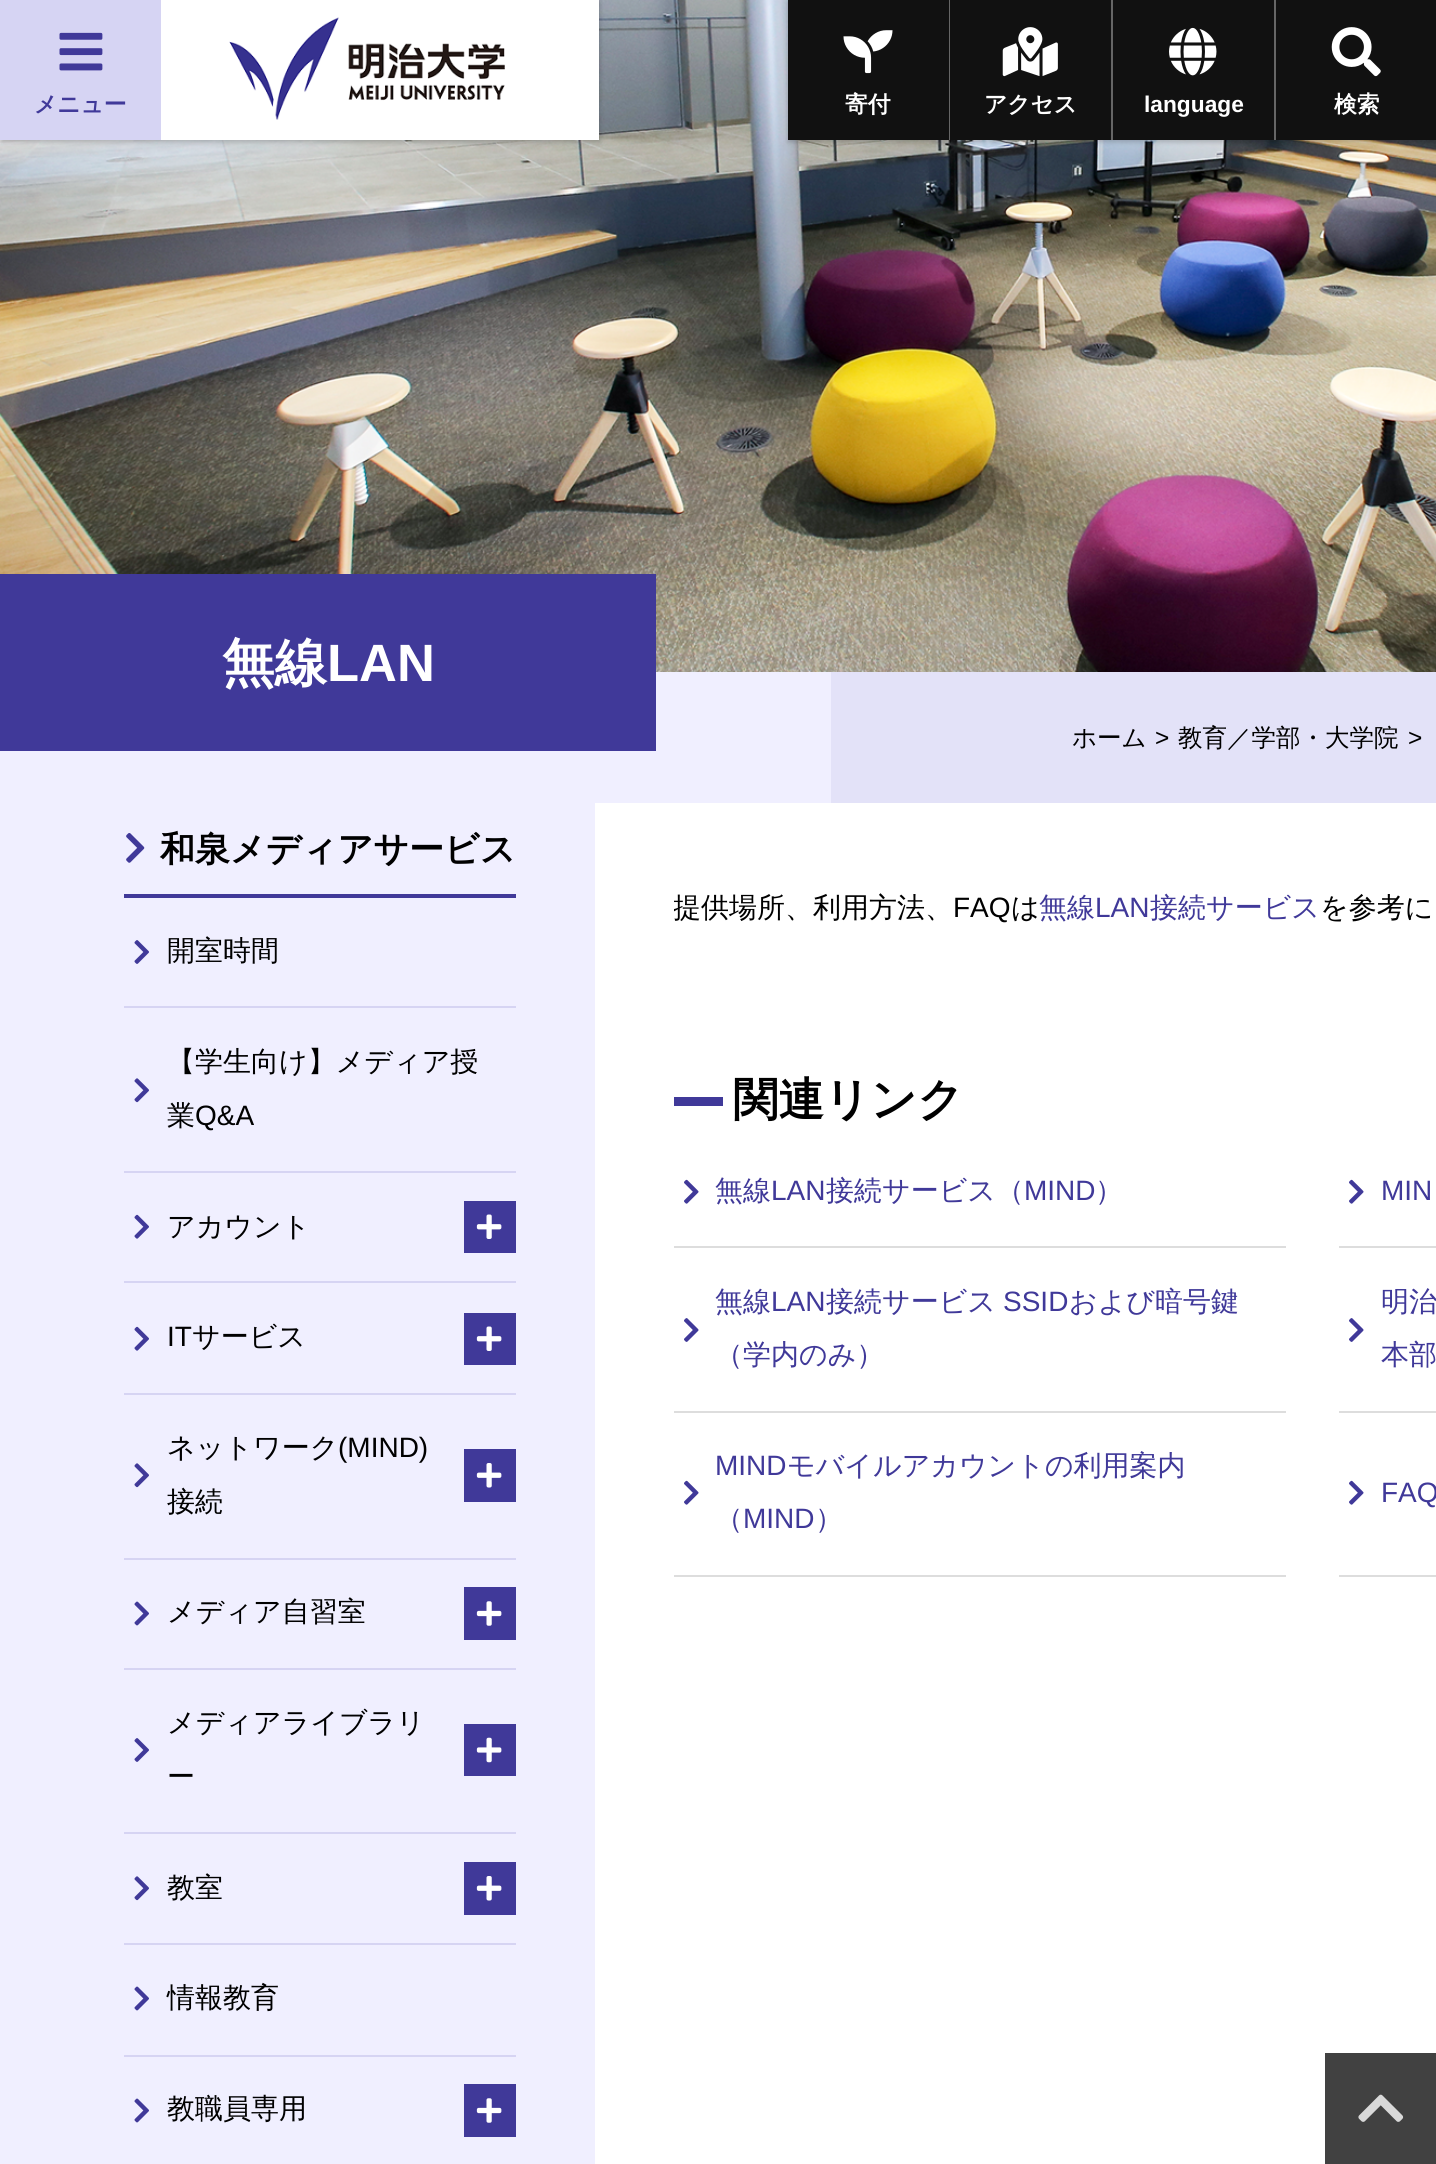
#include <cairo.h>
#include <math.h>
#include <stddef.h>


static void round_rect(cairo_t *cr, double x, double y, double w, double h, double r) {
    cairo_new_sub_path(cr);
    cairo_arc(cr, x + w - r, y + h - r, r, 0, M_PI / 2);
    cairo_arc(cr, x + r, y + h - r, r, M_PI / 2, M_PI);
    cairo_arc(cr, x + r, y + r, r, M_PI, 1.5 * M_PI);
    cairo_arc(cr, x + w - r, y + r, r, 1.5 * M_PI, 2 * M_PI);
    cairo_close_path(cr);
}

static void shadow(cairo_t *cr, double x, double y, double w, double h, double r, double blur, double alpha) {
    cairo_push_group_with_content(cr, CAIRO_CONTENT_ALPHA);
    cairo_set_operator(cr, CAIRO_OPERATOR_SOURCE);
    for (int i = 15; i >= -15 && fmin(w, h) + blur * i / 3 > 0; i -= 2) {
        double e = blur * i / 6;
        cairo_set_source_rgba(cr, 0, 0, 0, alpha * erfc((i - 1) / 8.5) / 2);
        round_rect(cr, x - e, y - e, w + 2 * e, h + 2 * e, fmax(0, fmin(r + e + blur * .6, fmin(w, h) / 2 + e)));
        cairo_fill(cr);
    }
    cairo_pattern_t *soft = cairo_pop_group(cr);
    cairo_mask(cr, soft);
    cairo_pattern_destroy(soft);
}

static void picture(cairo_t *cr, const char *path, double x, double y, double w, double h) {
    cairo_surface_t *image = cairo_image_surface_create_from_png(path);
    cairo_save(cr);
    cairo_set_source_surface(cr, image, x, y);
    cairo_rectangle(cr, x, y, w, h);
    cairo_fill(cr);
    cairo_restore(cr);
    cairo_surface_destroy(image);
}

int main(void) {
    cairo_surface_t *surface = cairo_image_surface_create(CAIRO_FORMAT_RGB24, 1436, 2164);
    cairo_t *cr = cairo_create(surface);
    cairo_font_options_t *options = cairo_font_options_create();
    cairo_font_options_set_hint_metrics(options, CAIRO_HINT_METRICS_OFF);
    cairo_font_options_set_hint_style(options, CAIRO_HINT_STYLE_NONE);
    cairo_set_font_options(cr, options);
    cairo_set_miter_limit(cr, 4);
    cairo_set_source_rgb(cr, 1, 1, 1);
    cairo_paint(cr);
    picture(cr, "img7.png", 0, 0, 1436, 672);
    cairo_set_source_rgb(cr, 0, 0, 0);
    shadow(cr, 2, 2, 598, 140, 0, 2.5, 0.2);
    cairo_set_source_rgb(cr, 0.839, 0.831, 0.953);
    cairo_rectangle(cr, 0, 0, 161, 140);
    cairo_fill(cr);
    picture(cr, "img1.png", 59, 32, 44, 39);
    cairo_select_font_face(cr, "WenQuanYi Zen Hei", CAIRO_FONT_SLANT_NORMAL, CAIRO_FONT_WEIGHT_BOLD);
    cairo_set_font_size(cr, 22.75);
    cairo_set_source_rgb(cr, 0.251, 0.224, 0.6);
    cairo_move_to(cr, 34, 112);
    cairo_show_text(cr, "メニュー");
    cairo_set_source_rgb(cr, 1, 1, 1);
    cairo_rectangle(cr, 161, 0, 438, 140);
    cairo_fill(cr);
    picture(cr, "img2.png", 229, 17, 276, 103);
    cairo_set_source_rgb(cr, 0, 0, 0);
    shadow(cr, 788, 2, 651, 140, 0, 2.5, 0.2);
    cairo_set_source_rgb(cr, 0.067, 0.067, 0.067);
    cairo_rectangle(cr, 788, 0, 161, 140);
    cairo_fill(cr);
    picture(cr, "img3.png", 843, 30, 50, 44);
    cairo_set_source_rgb(cr, 1, 1, 1);
    cairo_move_to(cr, 845, 112);
    cairo_show_text(cr, "寄付");
    cairo_set_source_rgb(cr, 0.4, 0.4, 0.4);
    cairo_rectangle(cr, 949, 0, 1, 140);
    cairo_fill(cr);
    cairo_set_source_rgb(cr, 0.067, 0.067, 0.067);
    cairo_rectangle(cr, 950, 0, 161, 140);
    cairo_fill(cr);
    picture(cr, "img4.png", 1002, 27, 56, 50);
    cairo_set_source_rgb(cr, 1, 1, 1);
    cairo_move_to(cr, 984, 112);
    cairo_show_text(cr, "アクセス");
    cairo_set_source_rgb(cr, 0.4, 0.4, 0.4);
    cairo_rectangle(cr, 1111, 0, 2, 140);
    cairo_fill(cr);
    cairo_set_source_rgb(cr, 0.067, 0.067, 0.067);
    cairo_rectangle(cr, 1113, 0, 161, 140);
    cairo_fill(cr);
    picture(cr, "img5.png", 1169, 27, 48, 49);
    cairo_select_font_face(cr, "Liberation Sans", CAIRO_FONT_SLANT_NORMAL, CAIRO_FONT_WEIGHT_BOLD);
    cairo_set_source_rgb(cr, 1, 1, 1);
    cairo_move_to(cr, 1144, 112);
    cairo_show_text(cr, "language");
    cairo_set_source_rgb(cr, 0.4, 0.4, 0.4);
    cairo_rectangle(cr, 1274, 0, 2, 140);
    cairo_fill(cr);
    cairo_set_source_rgb(cr, 0.067, 0.067, 0.067);
    cairo_rectangle(cr, 1276, 0, 160, 140);
    cairo_fill(cr);
    picture(cr, "img6.png", 1331, 27, 50, 50);
    cairo_select_font_face(cr, "WenQuanYi Zen Hei", CAIRO_FONT_SLANT_NORMAL, CAIRO_FONT_WEIGHT_BOLD);
    cairo_set_source_rgb(cr, 1, 1, 1);
    cairo_move_to(cr, 1334, 112);
    cairo_show_text(cr, "検索");
    cairo_set_source_rgb(cr, 0.941, 0.937, 1);
    cairo_rectangle(cr, 0, 672, 831, 1492);
    cairo_fill(cr);
    cairo_set_source_rgb(cr, 0.89, 0.886, 0.969);
    cairo_rectangle(cr, 831, 672, 605, 131);
    cairo_fill(cr);
    cairo_set_source_rgb(cr, 0.251, 0.224, 0.6);
    cairo_rectangle(cr, 0, 574, 656, 177);
    cairo_fill(cr);
    cairo_set_font_size(cr, 52.5);
    cairo_set_source_rgb(cr, 1, 1, 1);
    cairo_move_to(cr, 222, 681);
    cairo_show_text(cr, "無線");
    cairo_select_font_face(cr, "Liberation Sans", CAIRO_FONT_SLANT_NORMAL, CAIRO_FONT_WEIGHT_BOLD);
    cairo_move_to(cr, 327, 681);
    cairo_show_text(cr, "LAN");
    cairo_select_font_face(cr, "WenQuanYi Zen Hei Medium", CAIRO_FONT_SLANT_NORMAL, CAIRO_FONT_WEIGHT_NORMAL);
    cairo_set_font_size(cr, 24.5);
    cairo_set_source_rgb(cr, 0, 0, 0);
    cairo_move_to(cr, 1072, 746);
    cairo_show_text(cr, "ホーム");
    cairo_select_font_face(cr, "Liberation Sans", CAIRO_FONT_SLANT_NORMAL, CAIRO_FONT_WEIGHT_NORMAL);
    cairo_move_to(cr, 1155, 746);
    cairo_show_text(cr, ">");
    cairo_select_font_face(cr, "WenQuanYi Zen Hei Medium", CAIRO_FONT_SLANT_NORMAL, CAIRO_FONT_WEIGHT_NORMAL);
    cairo_move_to(cr, 1178, 746);
    cairo_show_text(cr, "教育／学部・大学院");
    cairo_select_font_face(cr, "Liberation Sans", CAIRO_FONT_SLANT_NORMAL, CAIRO_FONT_WEIGHT_NORMAL);
    cairo_move_to(cr, 1408, 746);
    cairo_show_text(cr, ">");
    cairo_set_source_rgb(cr, 0.251, 0.224, 0.6);
    cairo_rectangle(cr, 124, 894, 392, 4);
    cairo_fill(cr);
    picture(cr, "img8.png", 126, 833, 19, 30);
    cairo_select_font_face(cr, "WenQuanYi Zen Hei", CAIRO_FONT_SLANT_NORMAL, CAIRO_FONT_WEIGHT_BOLD);
    cairo_set_font_size(cr, 35);
    cairo_set_source_rgb(cr, 0, 0, 0);
    cairo_move_to(cr, 160, 861);
    cairo_show_text(cr, "和泉メディアサービス");
    cairo_set_source_rgb(cr, 0.839, 0.831, 0.953);
    cairo_rectangle(cr, 124, 1006, 392, 2);
    cairo_fill(cr);
    picture(cr, "img9.png", 134, 940, 15, 24);
    cairo_select_font_face(cr, "WenQuanYi Zen Hei Medium", CAIRO_FONT_SLANT_NORMAL, CAIRO_FONT_WEIGHT_NORMAL);
    cairo_set_font_size(cr, 28);
    cairo_set_source_rgb(cr, 0, 0, 0);
    cairo_move_to(cr, 167, 960);
    cairo_show_text(cr, "開室時間");
    cairo_set_source_rgb(cr, 0.839, 0.831, 0.953);
    cairo_rectangle(cr, 124, 1171, 392, 2);
    cairo_fill(cr);
    cairo_set_source_rgb(cr, 0, 0, 0);
    cairo_move_to(cr, 167, 1071);
    cairo_show_text(cr, "【学生向け】メディア授");
    picture(cr, "img10.png", 134, 1078, 15, 25);
    cairo_move_to(cr, 167, 1125);
    cairo_show_text(cr, "業");
    cairo_select_font_face(cr, "Liberation Sans", CAIRO_FONT_SLANT_NORMAL, CAIRO_FONT_WEIGHT_NORMAL);
    cairo_move_to(cr, 195, 1125);
    cairo_show_text(cr, "Q&A");
    cairo_set_source_rgb(cr, 0.839, 0.831, 0.953);
    cairo_rectangle(cr, 124, 1281, 392, 2);
    cairo_fill(cr);
    picture(cr, "img11.png", 134, 1214, 15, 25);
    cairo_select_font_face(cr, "WenQuanYi Zen Hei Medium", CAIRO_FONT_SLANT_NORMAL, CAIRO_FONT_WEIGHT_NORMAL);
    cairo_set_source_rgb(cr, 0, 0, 0);
    cairo_move_to(cr, 167, 1236);
    cairo_show_text(cr, "アカウント");
    cairo_set_source_rgb(cr, 0.251, 0.224, 0.6);
    cairo_rectangle(cr, 464, 1201, 52, 52);
    cairo_fill(cr);
    picture(cr, "img12.png", 476, 1214, 26, 25);
    cairo_set_source_rgb(cr, 0.839, 0.831, 0.953);
    cairo_rectangle(cr, 124, 1393, 392, 2);
    cairo_fill(cr);
    picture(cr, "img11.png", 134, 1326, 15, 25);
    cairo_select_font_face(cr, "Liberation Sans", CAIRO_FONT_SLANT_NORMAL, CAIRO_FONT_WEIGHT_NORMAL);
    cairo_set_source_rgb(cr, 0, 0, 0);
    cairo_move_to(cr, 167, 1346);
    cairo_show_text(cr, "IT");
    cairo_select_font_face(cr, "WenQuanYi Zen Hei Medium", CAIRO_FONT_SLANT_NORMAL, CAIRO_FONT_WEIGHT_NORMAL);
    cairo_move_to(cr, 192, 1346);
    cairo_show_text(cr, "サービス");
    cairo_set_source_rgb(cr, 0.251, 0.224, 0.6);
    cairo_rectangle(cr, 464, 1313, 52, 52);
    cairo_fill(cr);
    picture(cr, "img12.png", 476, 1326, 26, 25);
    cairo_set_source_rgb(cr, 0.839, 0.831, 0.953);
    cairo_rectangle(cr, 124, 1558, 392, 2);
    cairo_fill(cr);
    cairo_set_source_rgb(cr, 0, 0, 0);
    cairo_move_to(cr, 167, 1457);
    cairo_show_text(cr, "ネットワーク");
    cairo_select_font_face(cr, "Liberation Sans", CAIRO_FONT_SLANT_NORMAL, CAIRO_FONT_WEIGHT_NORMAL);
    cairo_move_to(cr, 338, 1457);
    cairo_show_text(cr, "(MIND)");
    picture(cr, "img10.png", 134, 1463, 15, 25);
    cairo_select_font_face(cr, "WenQuanYi Zen Hei Medium", CAIRO_FONT_SLANT_NORMAL, CAIRO_FONT_WEIGHT_NORMAL);
    cairo_move_to(cr, 167, 1511);
    cairo_show_text(cr, "接続");
    cairo_set_source_rgb(cr, 0.251, 0.224, 0.6);
    cairo_rectangle(cr, 464, 1449, 52, 53);
    cairo_fill(cr);
    picture(cr, "img13.png", 476, 1463, 26, 25);
    cairo_set_source_rgb(cr, 0.839, 0.831, 0.953);
    cairo_rectangle(cr, 124, 1668, 392, 2);
    cairo_fill(cr);
    picture(cr, "img14.png", 134, 1601, 15, 25);
    cairo_set_source_rgb(cr, 0, 0, 0);
    cairo_move_to(cr, 167, 1621);
    cairo_show_text(cr, "メディア自習室");
    cairo_set_source_rgb(cr, 0.251, 0.224, 0.6);
    cairo_rectangle(cr, 464, 1587, 52, 53);
    cairo_fill(cr);
    picture(cr, "img15.png", 476, 1601, 26, 25);
    cairo_set_source_rgb(cr, 0.839, 0.831, 0.953);
    cairo_rectangle(cr, 124, 1832, 392, 2);
    cairo_fill(cr);
    cairo_set_source_rgb(cr, 0, 0, 0);
    cairo_move_to(cr, 167, 1732);
    cairo_show_text(cr, "メディアライブラリ");
    picture(cr, "img9.png", 134, 1738, 15, 24);
    cairo_move_to(cr, 167, 1786);
    cairo_show_text(cr, "ー");
    cairo_set_source_rgb(cr, 0.251, 0.224, 0.6);
    cairo_rectangle(cr, 464, 1724, 52, 52);
    cairo_fill(cr);
    picture(cr, "img16.png", 476, 1737, 26, 26);
    cairo_set_source_rgb(cr, 0.839, 0.831, 0.953);
    cairo_rectangle(cr, 124, 1943, 392, 2);
    cairo_fill(cr);
    picture(cr, "img10.png", 134, 1876, 15, 25);
    cairo_set_source_rgb(cr, 0, 0, 0);
    cairo_move_to(cr, 167, 1897);
    cairo_show_text(cr, "教室");
    cairo_set_source_rgb(cr, 0.251, 0.224, 0.6);
    cairo_rectangle(cr, 464, 1862, 52, 53);
    cairo_fill(cr);
    picture(cr, "img13.png", 476, 1876, 26, 25);
    cairo_set_source_rgb(cr, 0.839, 0.831, 0.953);
    cairo_rectangle(cr, 124, 2055, 392, 2);
    cairo_fill(cr);
    picture(cr, "img14.png", 134, 1986, 15, 25);
    cairo_set_source_rgb(cr, 0, 0, 0);
    cairo_move_to(cr, 167, 2007);
    cairo_show_text(cr, "情報教育");
    picture(cr, "img14.png", 134, 2098, 15, 25);
    cairo_move_to(cr, 167, 2118);
    cairo_show_text(cr, "教職員専用");
    cairo_set_source_rgb(cr, 0.251, 0.224, 0.6);
    cairo_rectangle(cr, 464, 2084, 52, 53);
    cairo_fill(cr);
    picture(cr, "img15.png", 476, 2098, 26, 25);
    cairo_set_source_rgb(cr, 1, 1, 1);
    cairo_rectangle(cr, 595, 803, 236, 1361);
    cairo_fill(cr);
    cairo_save(cr);
    cairo_rectangle(cr, 674, 882, 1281, 53);
    cairo_clip(cr);
    cairo_set_source_rgb(cr, 0, 0, 0);
    cairo_move_to(cr, 673, 917);
    cairo_show_text(cr, "提供場所、利用方法、");
    cairo_restore(cr);
    cairo_select_font_face(cr, "Liberation Sans", CAIRO_FONT_SLANT_NORMAL, CAIRO_FONT_WEIGHT_NORMAL);
    cairo_set_source_rgb(cr, 0, 0, 0);
    cairo_move_to(cr, 953, 917);
    cairo_show_text(cr, "FAQ");
    cairo_select_font_face(cr, "WenQuanYi Zen Hei Medium", CAIRO_FONT_SLANT_NORMAL, CAIRO_FONT_WEIGHT_NORMAL);
    cairo_move_to(cr, 1011, 917);
    cairo_show_text(cr, "は");
    cairo_set_source_rgb(cr, 0.251, 0.224, 0.6);
    cairo_move_to(cr, 1039, 917);
    cairo_show_text(cr, "無線");
    cairo_select_font_face(cr, "Liberation Sans", CAIRO_FONT_SLANT_NORMAL, CAIRO_FONT_WEIGHT_NORMAL);
    cairo_move_to(cr, 1095, 917);
    cairo_show_text(cr, "LAN");
    cairo_select_font_face(cr, "WenQuanYi Zen Hei Medium", CAIRO_FONT_SLANT_NORMAL, CAIRO_FONT_WEIGHT_NORMAL);
    cairo_move_to(cr, 1150, 917);
    cairo_show_text(cr, "接続サービス");
    cairo_set_source_rgb(cr, 0, 0, 0);
    cairo_move_to(cr, 1320, 917);
    cairo_show_text(cr, "を参考に");
    cairo_set_source_rgb(cr, 0.251, 0.224, 0.6);
    cairo_rectangle(cr, 674, 1097, 49, 9);
    cairo_fill(cr);
    cairo_select_font_face(cr, "WenQuanYi Zen Hei", CAIRO_FONT_SLANT_NORMAL, CAIRO_FONT_WEIGHT_BOLD);
    cairo_set_font_size(cr, 45.5);
    cairo_set_source_rgb(cr, 0, 0, 0);
    cairo_move_to(cr, 733, 1115);
    cairo_show_text(cr, "関連リンク");
    cairo_set_source_rgb(cr, 0.867, 0.867, 0.867);
    cairo_rectangle(cr, 674, 1246, 612, 2);
    cairo_fill(cr);
    picture(cr, "img17.png", 684, 1179, 15, 25);
    cairo_select_font_face(cr, "WenQuanYi Zen Hei Medium", CAIRO_FONT_SLANT_NORMAL, CAIRO_FONT_WEIGHT_NORMAL);
    cairo_set_font_size(cr, 28);
    cairo_set_source_rgb(cr, 0.251, 0.224, 0.6);
    cairo_move_to(cr, 715, 1200);
    cairo_show_text(cr, "無線");
    cairo_select_font_face(cr, "Liberation Sans", CAIRO_FONT_SLANT_NORMAL, CAIRO_FONT_WEIGHT_NORMAL);
    cairo_move_to(cr, 771, 1200);
    cairo_show_text(cr, "LAN");
    cairo_select_font_face(cr, "WenQuanYi Zen Hei Medium", CAIRO_FONT_SLANT_NORMAL, CAIRO_FONT_WEIGHT_NORMAL);
    cairo_move_to(cr, 826, 1200);
    cairo_show_text(cr, "接続サービス（");
    cairo_select_font_face(cr, "Liberation Sans", CAIRO_FONT_SLANT_NORMAL, CAIRO_FONT_WEIGHT_NORMAL);
    cairo_move_to(cr, 1024, 1200);
    cairo_show_text(cr, "MIND");
    cairo_select_font_face(cr, "WenQuanYi Zen Hei Medium", CAIRO_FONT_SLANT_NORMAL, CAIRO_FONT_WEIGHT_NORMAL);
    cairo_move_to(cr, 1095, 1200);
    cairo_show_text(cr, "）");
    cairo_set_source_rgb(cr, 0.867, 0.867, 0.867);
    cairo_rectangle(cr, 1339, 1246, 97, 2);
    cairo_fill(cr);
    picture(cr, "img17.png", 1349, 1179, 15, 25);
    cairo_select_font_face(cr, "Liberation Sans", CAIRO_FONT_SLANT_NORMAL, CAIRO_FONT_WEIGHT_NORMAL);
    cairo_set_source_rgb(cr, 0.251, 0.224, 0.6);
    cairo_move_to(cr, 1381, 1200);
    cairo_show_text(cr, "MIN");
    cairo_set_source_rgb(cr, 0.867, 0.867, 0.867);
    cairo_rectangle(cr, 674, 1411, 612, 2);
    cairo_fill(cr);
    cairo_select_font_face(cr, "WenQuanYi Zen Hei Medium", CAIRO_FONT_SLANT_NORMAL, CAIRO_FONT_WEIGHT_NORMAL);
    cairo_set_source_rgb(cr, 0.251, 0.224, 0.6);
    cairo_move_to(cr, 715, 1311);
    cairo_show_text(cr, "無線");
    cairo_select_font_face(cr, "Liberation Sans", CAIRO_FONT_SLANT_NORMAL, CAIRO_FONT_WEIGHT_NORMAL);
    cairo_move_to(cr, 771, 1311);
    cairo_show_text(cr, "LAN");
    cairo_select_font_face(cr, "WenQuanYi Zen Hei Medium", CAIRO_FONT_SLANT_NORMAL, CAIRO_FONT_WEIGHT_NORMAL);
    cairo_move_to(cr, 826, 1311);
    cairo_show_text(cr, "接続サービス");
    cairo_select_font_face(cr, "Liberation Sans", CAIRO_FONT_SLANT_NORMAL, CAIRO_FONT_WEIGHT_NORMAL);
    cairo_move_to(cr, 1003, 1311);
    cairo_show_text(cr, "SSID");
    cairo_select_font_face(cr, "WenQuanYi Zen Hei Medium", CAIRO_FONT_SLANT_NORMAL, CAIRO_FONT_WEIGHT_NORMAL);
    cairo_move_to(cr, 1069, 1311);
    cairo_show_text(cr, "および暗号鍵");
    picture(cr, "img18.png", 684, 1318, 15, 24);
    cairo_move_to(cr, 715, 1364);
    cairo_show_text(cr, "（学内のみ）");
    cairo_set_source_rgb(cr, 0.867, 0.867, 0.867);
    cairo_rectangle(cr, 1339, 1411, 97, 2);
    cairo_fill(cr);
    cairo_set_source_rgb(cr, 0.251, 0.224, 0.6);
    cairo_move_to(cr, 1381, 1311);
    cairo_show_text(cr, "明治");
    picture(cr, "img18.png", 1349, 1318, 15, 24);
    cairo_move_to(cr, 1381, 1364);
    cairo_show_text(cr, "本部");
    cairo_set_source_rgb(cr, 0.867, 0.867, 0.867);
    cairo_rectangle(cr, 674, 1575, 612, 2);
    cairo_fill(cr);
    cairo_select_font_face(cr, "Liberation Sans", CAIRO_FONT_SLANT_NORMAL, CAIRO_FONT_WEIGHT_NORMAL);
    cairo_set_source_rgb(cr, 0.251, 0.224, 0.6);
    cairo_move_to(cr, 715, 1475);
    cairo_show_text(cr, "MIND");
    cairo_select_font_face(cr, "WenQuanYi Zen Hei Medium", CAIRO_FONT_SLANT_NORMAL, CAIRO_FONT_WEIGHT_NORMAL);
    cairo_move_to(cr, 787, 1475);
    cairo_show_text(cr, "モバイルアカウントの利用案内");
    picture(cr, "img17.png", 684, 1480, 15, 25);
    cairo_move_to(cr, 715, 1528);
    cairo_show_text(cr, "（");
    cairo_select_font_face(cr, "Liberation Sans", CAIRO_FONT_SLANT_NORMAL, CAIRO_FONT_WEIGHT_NORMAL);
    cairo_move_to(cr, 743, 1528);
    cairo_show_text(cr, "MIND");
    cairo_select_font_face(cr, "WenQuanYi Zen Hei Medium", CAIRO_FONT_SLANT_NORMAL, CAIRO_FONT_WEIGHT_NORMAL);
    cairo_move_to(cr, 815, 1528);
    cairo_show_text(cr, "）");
    cairo_set_source_rgb(cr, 0.867, 0.867, 0.867);
    cairo_rectangle(cr, 1339, 1575, 97, 2);
    cairo_fill(cr);
    picture(cr, "img17.png", 1349, 1480, 15, 25);
    cairo_select_font_face(cr, "Liberation Sans", CAIRO_FONT_SLANT_NORMAL, CAIRO_FONT_WEIGHT_NORMAL);
    cairo_set_source_rgb(cr, 0.251, 0.224, 0.6);
    cairo_move_to(cr, 1381, 1502);
    cairo_show_text(cr, "FAQ");
    cairo_set_source_rgb(cr, 0.255, 0.255, 0.255);
    cairo_rectangle(cr, 1325, 2053, 111, 111);
    cairo_fill(cr);
    picture(cr, "img19.png", 1358, 2094, 46, 28);
    cairo_surface_write_to_png(surface, "page.png");
    cairo_font_options_destroy(options);
    cairo_destroy(cr);
    cairo_surface_destroy(surface);
    return 0;
}
